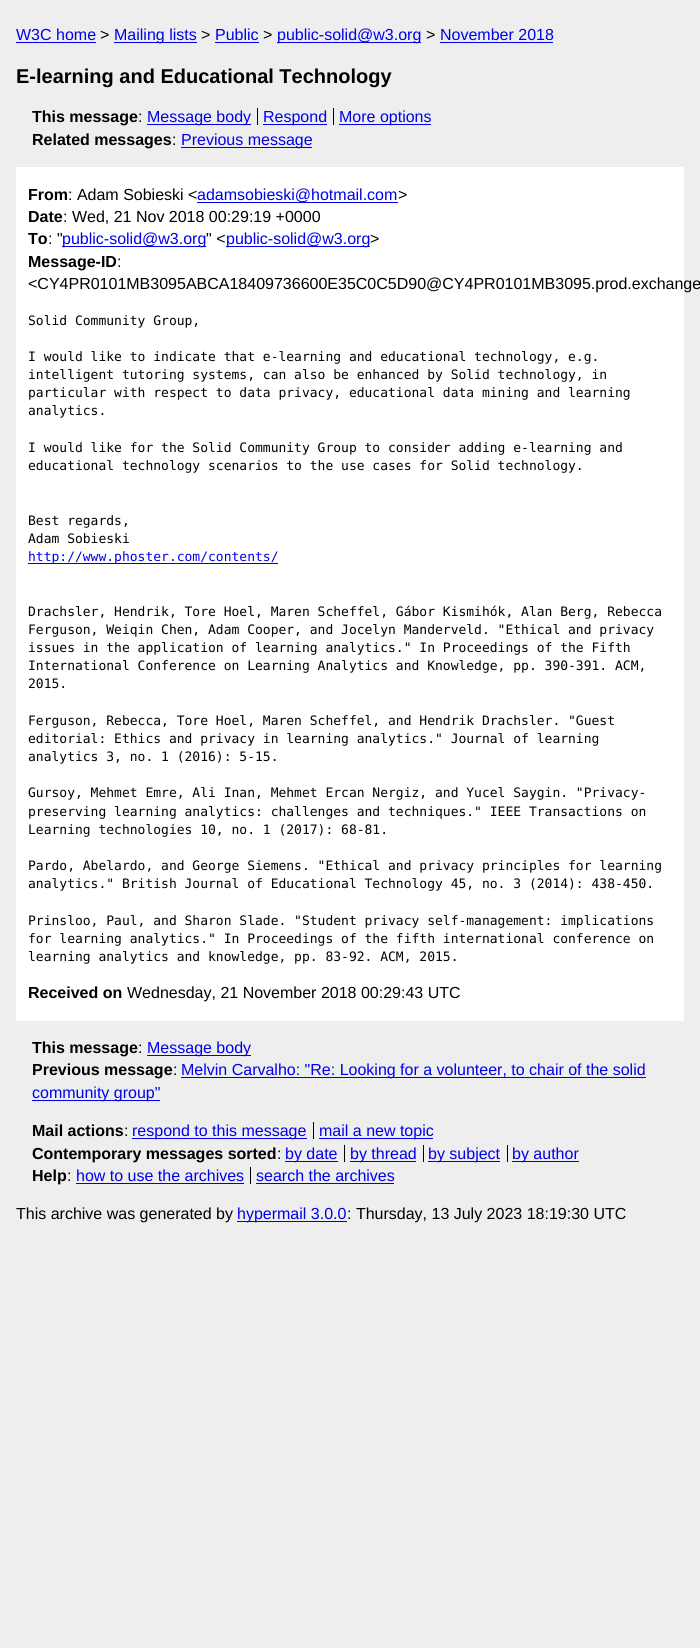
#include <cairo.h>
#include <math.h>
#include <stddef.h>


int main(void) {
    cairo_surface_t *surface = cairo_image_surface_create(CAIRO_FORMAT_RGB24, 700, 1648);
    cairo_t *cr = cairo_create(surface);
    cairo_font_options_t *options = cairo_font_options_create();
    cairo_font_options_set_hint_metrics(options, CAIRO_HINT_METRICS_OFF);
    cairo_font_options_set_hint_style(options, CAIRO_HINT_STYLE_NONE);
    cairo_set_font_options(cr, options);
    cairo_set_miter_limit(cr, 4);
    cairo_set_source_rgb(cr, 0.933, 0.933, 0.933);
    cairo_paint(cr);
    cairo_select_font_face(cr, "Liberation Sans", CAIRO_FONT_SLANT_NORMAL, CAIRO_FONT_WEIGHT_NORMAL);
    cairo_set_font_size(cr, 16);
    cairo_set_source_rgb(cr, 0, 0, 0.933);
    cairo_move_to(cr, 16, 40);
    cairo_show_text(cr, "W3C home");
    cairo_rectangle(cr, 16, 42, 80, 1);
    cairo_fill(cr);
    cairo_set_source_rgb(cr, 0, 0, 0);
    cairo_move_to(cr, 100, 40);
    cairo_show_text(cr, ">");
    cairo_set_source_rgb(cr, 0, 0, 0.933);
    cairo_rectangle(cr, 114, 42, 83, 1);
    cairo_fill(cr);
    cairo_move_to(cr, 114, 40);
    cairo_show_text(cr, "Mailing lists");
    cairo_set_source_rgb(cr, 0, 0, 0);
    cairo_move_to(cr, 201, 40);
    cairo_show_text(cr, ">");
    cairo_set_source_rgb(cr, 0, 0, 0.933);
    cairo_move_to(cr, 215, 40);
    cairo_show_text(cr, "Public");
    cairo_rectangle(cr, 215, 42, 44, 1);
    cairo_fill(cr);
    cairo_set_source_rgb(cr, 0, 0, 0);
    cairo_move_to(cr, 263, 40);
    cairo_show_text(cr, ">");
    cairo_set_source_rgb(cr, 0, 0, 0.933);
    cairo_rectangle(cr, 277, 42, 144, 1);
    cairo_fill(cr);
    cairo_move_to(cr, 277, 40);
    cairo_show_text(cr, "public-solid@w3.org");
    cairo_set_source_rgb(cr, 0, 0, 0);
    cairo_move_to(cr, 426, 40);
    cairo_show_text(cr, ">");
    cairo_set_source_rgb(cr, 0, 0, 0.933);
    cairo_move_to(cr, 440, 40);
    cairo_show_text(cr, "November 2018");
    cairo_rectangle(cr, 440, 42, 113, 1);
    cairo_fill(cr);
    cairo_select_font_face(cr, "Liberation Sans", CAIRO_FONT_SLANT_NORMAL, CAIRO_FONT_WEIGHT_BOLD);
    cairo_set_font_size(cr, 20);
    cairo_set_source_rgb(cr, 0, 0, 0);
    cairo_move_to(cr, 16, 83);
    cairo_show_text(cr, "E-learning and Educational Technology");
    cairo_set_font_size(cr, 16);
    cairo_move_to(cr, 32, 122);
    cairo_show_text(cr, "This message");
    cairo_select_font_face(cr, "Liberation Sans", CAIRO_FONT_SLANT_NORMAL, CAIRO_FONT_WEIGHT_NORMAL);
    cairo_move_to(cr, 138, 122);
    cairo_show_text(cr, ":");
    cairo_set_source_rgb(cr, 0, 0, 0.933);
    cairo_rectangle(cr, 147, 124, 104, 1);
    cairo_fill(cr);
    cairo_move_to(cr, 147, 122);
    cairo_show_text(cr, "Message body");
    cairo_rectangle(cr, 263, 124, 64, 1);
    cairo_fill(cr);
    cairo_move_to(cr, 263, 122);
    cairo_show_text(cr, "Respond");
    cairo_set_source_rgb(cr, 0, 0, 0);
    cairo_rectangle(cr, 257, 108, 1, 17);
    cairo_fill(cr);
    cairo_set_source_rgb(cr, 0, 0, 0.933);
    cairo_rectangle(cr, 339, 124, 92, 1);
    cairo_fill(cr);
    cairo_move_to(cr, 339, 122);
    cairo_show_text(cr, "More options");
    cairo_set_source_rgb(cr, 0, 0, 0);
    cairo_rectangle(cr, 333, 108, 1, 17);
    cairo_fill(cr);
    cairo_select_font_face(cr, "Liberation Sans", CAIRO_FONT_SLANT_NORMAL, CAIRO_FONT_WEIGHT_BOLD);
    cairo_move_to(cr, 32, 145);
    cairo_show_text(cr, "Related messages");
    cairo_select_font_face(cr, "Liberation Sans", CAIRO_FONT_SLANT_NORMAL, CAIRO_FONT_WEIGHT_NORMAL);
    cairo_move_to(cr, 172, 145);
    cairo_show_text(cr, ":");
    cairo_set_source_rgb(cr, 0, 0, 0.933);
    cairo_rectangle(cr, 181, 147, 131, 1);
    cairo_fill(cr);
    cairo_move_to(cr, 181, 145);
    cairo_show_text(cr, "Previous message");
    cairo_set_source_rgb(cr, 1, 1, 1);
    cairo_rectangle(cr, 16, 167, 668, 854);
    cairo_fill(cr);
    cairo_select_font_face(cr, "Liberation Sans", CAIRO_FONT_SLANT_NORMAL, CAIRO_FONT_WEIGHT_BOLD);
    cairo_set_source_rgb(cr, 0, 0, 0);
    cairo_move_to(cr, 28, 200);
    cairo_show_text(cr, "From");
    cairo_select_font_face(cr, "Liberation Sans", CAIRO_FONT_SLANT_NORMAL, CAIRO_FONT_WEIGHT_NORMAL);
    cairo_move_to(cr, 68, 200);
    cairo_show_text(cr, ": Adam Sobieski <");
    cairo_set_source_rgb(cr, 0, 0, 0.933);
    cairo_rectangle(cr, 197, 202, 201, 1);
    cairo_fill(cr);
    cairo_move_to(cr, 197, 200);
    cairo_show_text(cr, "adamsobieski@hotmail.com");
    cairo_set_source_rgb(cr, 0, 0, 0);
    cairo_move_to(cr, 398, 200);
    cairo_show_text(cr, ">");
    cairo_select_font_face(cr, "Liberation Sans", CAIRO_FONT_SLANT_NORMAL, CAIRO_FONT_WEIGHT_BOLD);
    cairo_move_to(cr, 28, 222);
    cairo_show_text(cr, "Date");
    cairo_select_font_face(cr, "Liberation Sans", CAIRO_FONT_SLANT_NORMAL, CAIRO_FONT_WEIGHT_NORMAL);
    cairo_move_to(cr, 63, 222);
    cairo_show_text(cr, ": Wed, 21 Nov 2018 00:29:19 +0000");
    cairo_select_font_face(cr, "Liberation Sans", CAIRO_FONT_SLANT_NORMAL, CAIRO_FONT_WEIGHT_BOLD);
    cairo_move_to(cr, 28, 244);
    cairo_show_text(cr, "To");
    cairo_select_font_face(cr, "Liberation Sans", CAIRO_FONT_SLANT_NORMAL, CAIRO_FONT_WEIGHT_NORMAL);
    cairo_move_to(cr, 48, 244);
    cairo_show_text(cr, ": \"");
    cairo_set_source_rgb(cr, 0, 0, 0.933);
    cairo_rectangle(cr, 62, 246, 144, 1);
    cairo_fill(cr);
    cairo_move_to(cr, 62, 244);
    cairo_show_text(cr, "public-solid@w3.org");
    cairo_set_source_rgb(cr, 0, 0, 0);
    cairo_move_to(cr, 206, 244);
    cairo_show_text(cr, "\" <");
    cairo_set_source_rgb(cr, 0, 0, 0.933);
    cairo_rectangle(cr, 226, 246, 144, 1);
    cairo_fill(cr);
    cairo_move_to(cr, 226, 244);
    cairo_show_text(cr, "public-solid@w3.org");
    cairo_set_source_rgb(cr, 0, 0, 0);
    cairo_move_to(cr, 370, 244);
    cairo_show_text(cr, ">");
    cairo_select_font_face(cr, "Liberation Sans", CAIRO_FONT_SLANT_NORMAL, CAIRO_FONT_WEIGHT_BOLD);
    cairo_move_to(cr, 28, 267);
    cairo_show_text(cr, "Message-ID");
    cairo_select_font_face(cr, "Liberation Sans", CAIRO_FONT_SLANT_NORMAL, CAIRO_FONT_WEIGHT_NORMAL);
    cairo_move_to(cr, 117, 267);
    cairo_show_text(cr, ":");
    cairo_move_to(cr, 28, 289);
    cairo_show_text(cr, "<CY4PR0101MB3095ABCA18409736600E35C0C5D90@CY4PR0101MB3095.prod.exchange");
    cairo_select_font_face(cr, "DejaVu Sans Mono", CAIRO_FONT_SLANT_NORMAL, CAIRO_FONT_WEIGHT_NORMAL);
    cairo_set_font_size(cr, 13);
    cairo_move_to(cr, 28, 325);
    cairo_show_text(cr, "Solid Community Group,");
    cairo_move_to(cr, 28, 361);
    cairo_show_text(cr, "I would like to indicate that e-learning and educational technology, e.g.");
    cairo_move_to(cr, 28, 379);
    cairo_show_text(cr, "intelligent tutoring systems, can also be enhanced by Solid technology, in");
    cairo_move_to(cr, 28, 397);
    cairo_show_text(cr, "particular with respect to data privacy, educational data mining and learning");
    cairo_move_to(cr, 28, 415);
    cairo_show_text(cr, "analytics.");
    cairo_move_to(cr, 28, 452);
    cairo_show_text(cr, "I would like for the Solid Community Group to consider adding e-learning and");
    cairo_move_to(cr, 28, 470);
    cairo_show_text(cr, "educational technology scenarios to the use cases for Solid technology.");
    cairo_move_to(cr, 28, 525);
    cairo_show_text(cr, "Best regards,");
    cairo_move_to(cr, 28, 543);
    cairo_show_text(cr, "Adam Sobieski");
    cairo_set_source_rgb(cr, 0, 0, 0.933);
    cairo_rectangle(cr, 28, 563, 250, 1);
    cairo_fill(cr);
    cairo_move_to(cr, 28, 561);
    cairo_show_text(cr, "http://www.phoster.com/contents/");
    cairo_set_source_rgb(cr, 0, 0, 0);
    cairo_move_to(cr, 28, 616);
    cairo_show_text(cr, "Drachsler, Hendrik, Tore Hoel, Maren Scheffel, Gábor Kismihók, Alan Berg, Rebecca");
    cairo_move_to(cr, 28, 634);
    cairo_show_text(cr, "Ferguson, Weiqin Chen, Adam Cooper, and Jocelyn Manderveld. \"Ethical and privacy");
    cairo_move_to(cr, 28, 652);
    cairo_show_text(cr, "issues in the application of learning analytics.\" In Proceedings of the Fifth");
    cairo_move_to(cr, 28, 670);
    cairo_show_text(cr, "International Conference on Learning Analytics and Knowledge, pp. 390-391. ACM,");
    cairo_move_to(cr, 28, 688);
    cairo_show_text(cr, "2015.");
    cairo_move_to(cr, 28, 725);
    cairo_show_text(cr, "Ferguson, Rebecca, Tore Hoel, Maren Scheffel, and Hendrik Drachsler. \"Guest");
    cairo_move_to(cr, 28, 743);
    cairo_show_text(cr, "editorial: Ethics and privacy in learning analytics.\" Journal of learning");
    cairo_move_to(cr, 28, 761);
    cairo_show_text(cr, "analytics 3, no. 1 (2016): 5-15.");
    cairo_move_to(cr, 28, 797);
    cairo_show_text(cr, "Gursoy, Mehmet Emre, Ali Inan, Mehmet Ercan Nergiz, and Yucel Saygin. \"Privacy-");
    cairo_move_to(cr, 28, 816);
    cairo_show_text(cr, "preserving learning analytics: challenges and techniques.\" IEEE Transactions on");
    cairo_move_to(cr, 28, 834);
    cairo_show_text(cr, "Learning technologies 10, no. 1 (2017): 68-81.");
    cairo_move_to(cr, 28, 870);
    cairo_show_text(cr, "Pardo, Abelardo, and George Siemens. \"Ethical and privacy principles for learning");
    cairo_move_to(cr, 28, 888);
    cairo_show_text(cr, "analytics.\" British Journal of Educational Technology 45, no. 3 (2014): 438-450.");
    cairo_move_to(cr, 28, 925);
    cairo_show_text(cr, "Prinsloo, Paul, and Sharon Slade. \"Student privacy self-management: implications");
    cairo_move_to(cr, 28, 943);
    cairo_show_text(cr, "for learning analytics.\" In Proceedings of the fifth international conference on");
    cairo_move_to(cr, 28, 961);
    cairo_show_text(cr, "learning analytics and knowledge, pp. 83-92. ACM, 2015.");
    cairo_select_font_face(cr, "Liberation Sans", CAIRO_FONT_SLANT_NORMAL, CAIRO_FONT_WEIGHT_BOLD);
    cairo_set_font_size(cr, 16);
    cairo_move_to(cr, 28, 998);
    cairo_show_text(cr, "Received on");
    cairo_select_font_face(cr, "Liberation Sans", CAIRO_FONT_SLANT_NORMAL, CAIRO_FONT_WEIGHT_NORMAL);
    cairo_move_to(cr, 127, 998);
    cairo_show_text(cr, "Wednesday, 21 November 2018 00:29:43 UTC");
    cairo_select_font_face(cr, "Liberation Sans", CAIRO_FONT_SLANT_NORMAL, CAIRO_FONT_WEIGHT_BOLD);
    cairo_move_to(cr, 32, 1053);
    cairo_show_text(cr, "This message");
    cairo_select_font_face(cr, "Liberation Sans", CAIRO_FONT_SLANT_NORMAL, CAIRO_FONT_WEIGHT_NORMAL);
    cairo_move_to(cr, 138, 1053);
    cairo_show_text(cr, ":");
    cairo_set_source_rgb(cr, 0, 0, 0.933);
    cairo_rectangle(cr, 147, 1055, 104, 1);
    cairo_fill(cr);
    cairo_move_to(cr, 147, 1053);
    cairo_show_text(cr, "Message body");
    cairo_select_font_face(cr, "Liberation Sans", CAIRO_FONT_SLANT_NORMAL, CAIRO_FONT_WEIGHT_BOLD);
    cairo_set_source_rgb(cr, 0, 0, 0);
    cairo_move_to(cr, 32, 1075);
    cairo_show_text(cr, "Previous message");
    cairo_select_font_face(cr, "Liberation Sans", CAIRO_FONT_SLANT_NORMAL, CAIRO_FONT_WEIGHT_NORMAL);
    cairo_move_to(cr, 173, 1075);
    cairo_show_text(cr, ":");
    cairo_set_source_rgb(cr, 0, 0, 0.933);
    cairo_rectangle(cr, 181, 1077, 465, 1);
    cairo_fill(cr);
    cairo_move_to(cr, 181, 1075);
    cairo_show_text(cr, "Melvin Carvalho: \"Re: Looking for a volunteer, to chair of the solid");
    cairo_rectangle(cr, 32, 1100, 128, 1);
    cairo_fill(cr);
    cairo_move_to(cr, 32, 1098);
    cairo_show_text(cr, "community group\"");
    cairo_select_font_face(cr, "Liberation Sans", CAIRO_FONT_SLANT_NORMAL, CAIRO_FONT_WEIGHT_BOLD);
    cairo_set_source_rgb(cr, 0, 0, 0);
    cairo_move_to(cr, 32, 1136);
    cairo_show_text(cr, "Mail actions");
    cairo_select_font_face(cr, "Liberation Sans", CAIRO_FONT_SLANT_NORMAL, CAIRO_FONT_WEIGHT_NORMAL);
    cairo_move_to(cr, 124, 1136);
    cairo_show_text(cr, ":");
    cairo_set_source_rgb(cr, 0, 0, 0.933);
    cairo_rectangle(cr, 132, 1138, 175, 1);
    cairo_fill(cr);
    cairo_move_to(cr, 132, 1136);
    cairo_show_text(cr, "respond to this message");
    cairo_rectangle(cr, 319, 1138, 114, 1);
    cairo_fill(cr);
    cairo_move_to(cr, 319, 1136);
    cairo_show_text(cr, "mail a new topic");
    cairo_set_source_rgb(cr, 0, 0, 0);
    cairo_rectangle(cr, 313, 1122, 1, 17);
    cairo_fill(cr);
    cairo_select_font_face(cr, "Liberation Sans", CAIRO_FONT_SLANT_NORMAL, CAIRO_FONT_WEIGHT_BOLD);
    cairo_move_to(cr, 32, 1159);
    cairo_show_text(cr, "Contemporary messages sorted");
    cairo_select_font_face(cr, "Liberation Sans", CAIRO_FONT_SLANT_NORMAL, CAIRO_FONT_WEIGHT_NORMAL);
    cairo_move_to(cr, 277, 1159);
    cairo_show_text(cr, ":");
    cairo_set_source_rgb(cr, 0, 0, 0.933);
    cairo_rectangle(cr, 285, 1161, 53, 1);
    cairo_fill(cr);
    cairo_move_to(cr, 285, 1159);
    cairo_show_text(cr, "by date");
    cairo_rectangle(cr, 350, 1161, 66, 1);
    cairo_fill(cr);
    cairo_move_to(cr, 350, 1159);
    cairo_show_text(cr, "by thread");
    cairo_set_source_rgb(cr, 0, 0, 0);
    cairo_rectangle(cr, 344, 1145, 1, 17);
    cairo_fill(cr);
    cairo_set_source_rgb(cr, 0, 0, 0.933);
    cairo_rectangle(cr, 428, 1161, 72, 1);
    cairo_fill(cr);
    cairo_move_to(cr, 428, 1159);
    cairo_show_text(cr, "by subject");
    cairo_set_source_rgb(cr, 0, 0, 0);
    cairo_rectangle(cr, 423, 1145, 1, 17);
    cairo_fill(cr);
    cairo_set_source_rgb(cr, 0, 0, 0.933);
    cairo_rectangle(cr, 512, 1161, 67, 1);
    cairo_fill(cr);
    cairo_move_to(cr, 512, 1159);
    cairo_show_text(cr, "by author");
    cairo_set_source_rgb(cr, 0, 0, 0);
    cairo_rectangle(cr, 507, 1145, 1, 17);
    cairo_fill(cr);
    cairo_select_font_face(cr, "Liberation Sans", CAIRO_FONT_SLANT_NORMAL, CAIRO_FONT_WEIGHT_BOLD);
    cairo_move_to(cr, 32, 1181);
    cairo_show_text(cr, "Help");
    cairo_select_font_face(cr, "Liberation Sans", CAIRO_FONT_SLANT_NORMAL, CAIRO_FONT_WEIGHT_NORMAL);
    cairo_move_to(cr, 67, 1181);
    cairo_show_text(cr, ":");
    cairo_set_source_rgb(cr, 0, 0, 0.933);
    cairo_move_to(cr, 76, 1181);
    cairo_show_text(cr, "how to use the archives");
    cairo_rectangle(cr, 76, 1183, 168, 1);
    cairo_fill(cr);
    cairo_move_to(cr, 256, 1181);
    cairo_show_text(cr, "search the archives");
    cairo_set_source_rgb(cr, 0, 0, 0);
    cairo_rectangle(cr, 250, 1167, 1, 17);
    cairo_fill(cr);
    cairo_set_source_rgb(cr, 0, 0, 0.933);
    cairo_rectangle(cr, 256, 1183, 138, 1);
    cairo_fill(cr);
    cairo_set_source_rgb(cr, 0, 0, 0);
    cairo_move_to(cr, 16, 1219);
    cairo_show_text(cr, "This archive was generated by");
    cairo_set_source_rgb(cr, 0, 0, 0.933);
    cairo_rectangle(cr, 237, 1221, 110, 1);
    cairo_fill(cr);
    cairo_move_to(cr, 237, 1219);
    cairo_show_text(cr, "hypermail 3.0.0");
    cairo_set_source_rgb(cr, 0, 0, 0);
    cairo_move_to(cr, 347, 1219);
    cairo_show_text(cr, ": Thursday, 13 July 2023 18:19:30 UTC");
    cairo_surface_write_to_png(surface, "page.png");
    cairo_font_options_destroy(options);
    cairo_destroy(cr);
    cairo_surface_destroy(surface);
    return 0;
}
